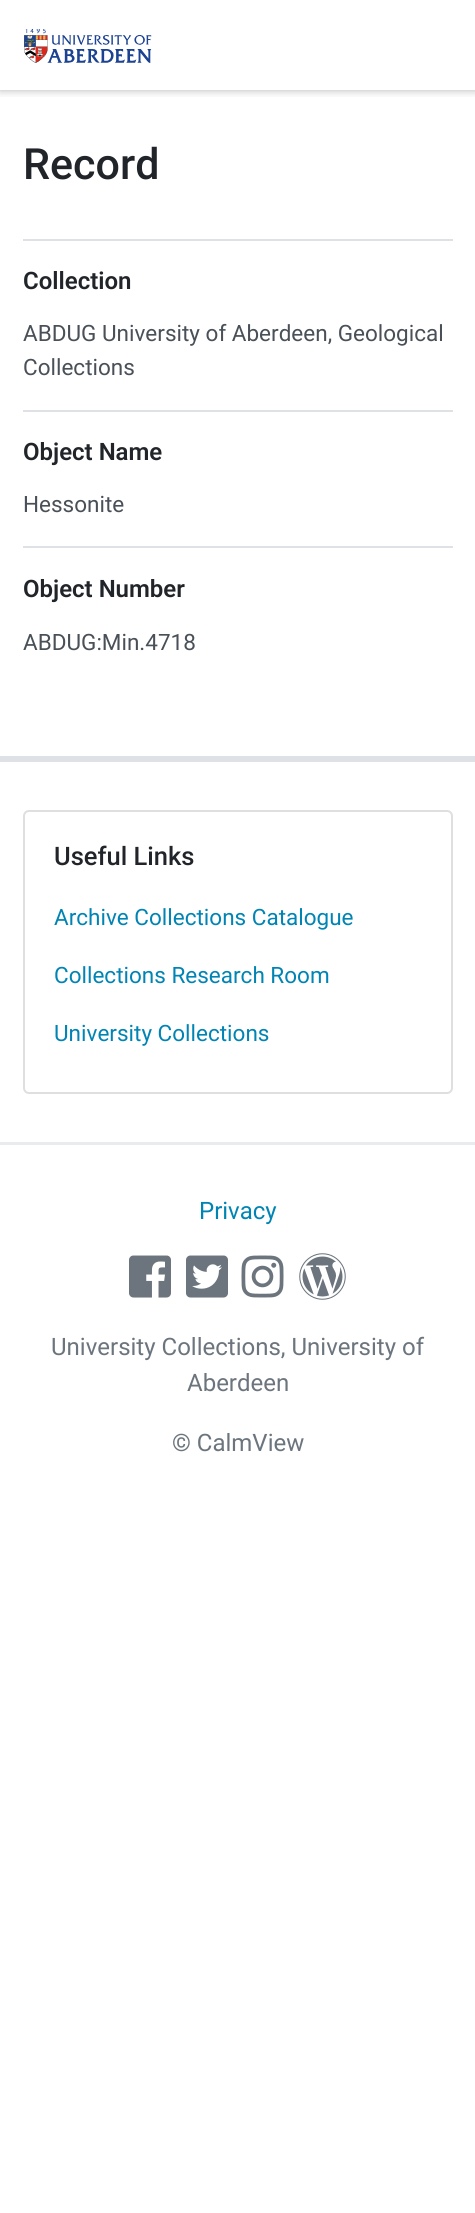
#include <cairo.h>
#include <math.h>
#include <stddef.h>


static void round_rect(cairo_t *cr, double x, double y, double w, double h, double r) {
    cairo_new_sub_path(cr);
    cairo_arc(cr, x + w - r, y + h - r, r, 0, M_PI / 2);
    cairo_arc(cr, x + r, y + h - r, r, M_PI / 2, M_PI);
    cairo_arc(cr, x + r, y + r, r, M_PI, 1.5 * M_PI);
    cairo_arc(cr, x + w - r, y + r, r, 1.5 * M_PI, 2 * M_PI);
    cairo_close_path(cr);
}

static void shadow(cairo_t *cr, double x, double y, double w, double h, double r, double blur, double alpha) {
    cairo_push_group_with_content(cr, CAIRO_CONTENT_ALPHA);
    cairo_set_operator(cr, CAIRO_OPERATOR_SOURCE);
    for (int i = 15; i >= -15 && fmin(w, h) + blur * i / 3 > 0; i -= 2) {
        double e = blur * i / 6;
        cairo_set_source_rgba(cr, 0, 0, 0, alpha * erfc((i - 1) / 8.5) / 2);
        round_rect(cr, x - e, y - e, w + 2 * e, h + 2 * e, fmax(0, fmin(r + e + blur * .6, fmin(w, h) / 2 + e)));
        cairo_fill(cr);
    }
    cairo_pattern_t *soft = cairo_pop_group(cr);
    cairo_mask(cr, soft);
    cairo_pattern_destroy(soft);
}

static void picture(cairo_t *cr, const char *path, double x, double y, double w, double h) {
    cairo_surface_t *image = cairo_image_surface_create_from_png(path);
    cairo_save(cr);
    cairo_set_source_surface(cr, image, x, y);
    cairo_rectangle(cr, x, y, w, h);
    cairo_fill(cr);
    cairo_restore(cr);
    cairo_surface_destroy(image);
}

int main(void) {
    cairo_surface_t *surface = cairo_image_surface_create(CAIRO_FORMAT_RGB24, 475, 2213);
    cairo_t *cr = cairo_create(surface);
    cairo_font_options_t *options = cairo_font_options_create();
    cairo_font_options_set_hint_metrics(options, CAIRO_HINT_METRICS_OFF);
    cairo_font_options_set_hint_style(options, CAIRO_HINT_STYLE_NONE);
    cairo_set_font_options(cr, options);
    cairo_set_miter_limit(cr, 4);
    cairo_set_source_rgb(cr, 1, 1, 1);
    cairo_paint(cr);
    cairo_save(cr);
    cairo_rectangle(cr, 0, 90, 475, 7);
    cairo_clip(cr);
    cairo_set_source_rgb(cr, 0, 0, 0);
    shadow(cr, 0, 0, 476, 90, 0, 4.5, 0.3);
    cairo_restore(cr);
    picture(cr, "img1.png", 24, 29, 128, 34);
    cairo_select_font_face(cr, "Roboto Medium", CAIRO_FONT_SLANT_NORMAL, CAIRO_FONT_WEIGHT_NORMAL);
    cairo_set_font_size(cr, 43);
    cairo_set_source_rgb(cr, 0.129, 0.145, 0.161);
    cairo_move_to(cr, 23, 179);
    cairo_show_text(cr, "Record");
    cairo_set_source_rgb(cr, 0.871, 0.886, 0.902);
    cairo_rectangle(cr, 23, 239, 430, 2);
    cairo_fill(cr);
    cairo_select_font_face(cr, "Roboto SemiBold", CAIRO_FONT_SLANT_NORMAL, CAIRO_FONT_WEIGHT_NORMAL);
    cairo_set_font_size(cr, 24);
    cairo_set_source_rgb(cr, 0.129, 0.145, 0.161);
    cairo_move_to(cr, 23, 289);
    cairo_show_text(cr, "Collection");
    cairo_select_font_face(cr, "Roboto", CAIRO_FONT_SLANT_NORMAL, CAIRO_FONT_WEIGHT_NORMAL);
    cairo_set_font_size(cr, 22.5);
    cairo_set_source_rgb(cr, 0.286, 0.314, 0.341);
    cairo_move_to(cr, 23, 341);
    cairo_show_text(cr, "ABDUG University of Aberdeen, Geological");
    cairo_move_to(cr, 23, 375);
    cairo_show_text(cr, "Collections");
    cairo_set_source_rgb(cr, 0.871, 0.886, 0.902);
    cairo_rectangle(cr, 23, 410, 430, 2);
    cairo_fill(cr);
    cairo_select_font_face(cr, "Roboto SemiBold", CAIRO_FONT_SLANT_NORMAL, CAIRO_FONT_WEIGHT_NORMAL);
    cairo_set_font_size(cr, 24);
    cairo_set_source_rgb(cr, 0.129, 0.145, 0.161);
    cairo_move_to(cr, 23, 460);
    cairo_show_text(cr, "Object Name");
    cairo_select_font_face(cr, "Roboto", CAIRO_FONT_SLANT_NORMAL, CAIRO_FONT_WEIGHT_NORMAL);
    cairo_set_font_size(cr, 22.5);
    cairo_set_source_rgb(cr, 0.286, 0.314, 0.341);
    cairo_move_to(cr, 23, 512);
    cairo_show_text(cr, "Hessonite");
    cairo_set_source_rgb(cr, 0.871, 0.886, 0.902);
    cairo_rectangle(cr, 23, 546, 430, 2);
    cairo_fill(cr);
    cairo_select_font_face(cr, "Roboto SemiBold", CAIRO_FONT_SLANT_NORMAL, CAIRO_FONT_WEIGHT_NORMAL);
    cairo_set_font_size(cr, 24);
    cairo_set_source_rgb(cr, 0.129, 0.145, 0.161);
    cairo_move_to(cr, 23, 597);
    cairo_show_text(cr, "Object Number");
    cairo_select_font_face(cr, "Roboto", CAIRO_FONT_SLANT_NORMAL, CAIRO_FONT_WEIGHT_NORMAL);
    cairo_set_font_size(cr, 22.5);
    cairo_set_source_rgb(cr, 0.286, 0.314, 0.341);
    cairo_move_to(cr, 23, 650);
    cairo_show_text(cr, "ABDUG:Min.4718");
    cairo_set_source_rgb(cr, 0.871, 0.886, 0.902);
    cairo_rectangle(cr, 0, 756, 475, 6);
    cairo_fill(cr);
    round_rect(cr, 24, 811, 428, 282, 5);
    cairo_set_source_rgb(cr, 0.875, 0.875, 0.875);
    cairo_stroke(cr);
    cairo_select_font_face(cr, "Roboto Medium", CAIRO_FONT_SLANT_NORMAL, CAIRO_FONT_WEIGHT_NORMAL);
    cairo_set_font_size(cr, 25.5);
    cairo_set_source_rgb(cr, 0.129, 0.145, 0.161);
    cairo_move_to(cr, 54, 865);
    cairo_show_text(cr, "Useful Links");
    cairo_select_font_face(cr, "Roboto", CAIRO_FONT_SLANT_NORMAL, CAIRO_FONT_WEIGHT_NORMAL);
    cairo_set_font_size(cr, 22.5);
    cairo_set_source_rgb(cr, 0, 0.518, 0.706);
    cairo_move_to(cr, 54, 925);
    cairo_show_text(cr, "Archive Collections Catalogue");
    cairo_move_to(cr, 54, 983);
    cairo_show_text(cr, "Collections Research Room");
    cairo_move_to(cr, 54, 1041);
    cairo_show_text(cr, "University Collections");
    cairo_set_source_rgb(cr, 0.914, 0.925, 0.937);
    cairo_rectangle(cr, 0, 1142, 475, 3);
    cairo_fill(cr);
    cairo_set_font_size(cr, 24);
    cairo_set_source_rgb(cr, 0, 0.518, 0.706);
    cairo_move_to(cr, 199, 1219);
    cairo_show_text(cr, "Privacy");
    picture(cr, "img2.png", 129, 1255, 42, 43);
    picture(cr, "img3.png", 186, 1255, 42, 43);
    picture(cr, "img4.png", 241, 1255, 43, 43);
    picture(cr, "img5.png", 299, 1253, 47, 47);
    cairo_set_source_rgb(cr, 0.424, 0.459, 0.49);
    cairo_move_to(cr, 51, 1355);
    cairo_show_text(cr, "University Collections, University of");
    cairo_move_to(cr, 187, 1391);
    cairo_show_text(cr, "Aberdeen");
    cairo_move_to(cr, 172, 1451);
    cairo_show_text(cr, "© CalmView");
    cairo_surface_write_to_png(surface, "page.png");
    cairo_font_options_destroy(options);
    cairo_destroy(cr);
    cairo_surface_destroy(surface);
    return 0;
}
